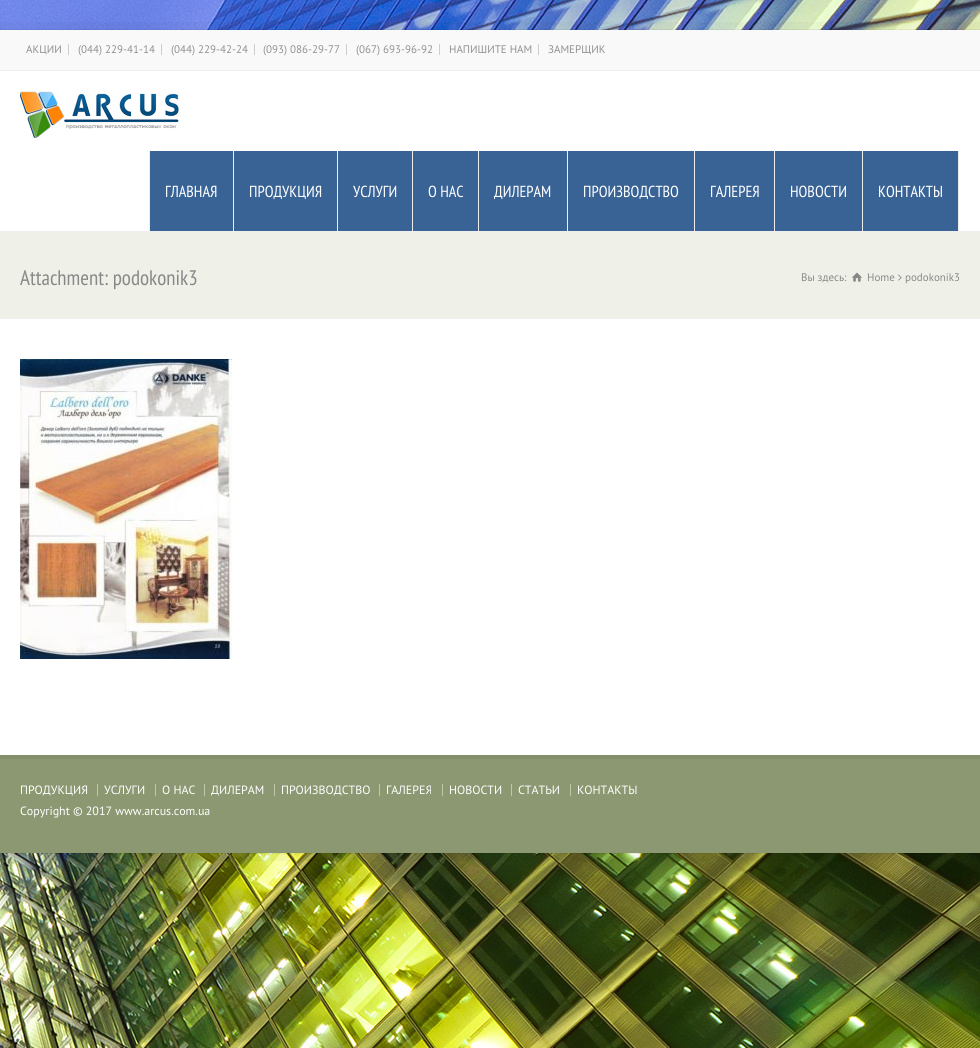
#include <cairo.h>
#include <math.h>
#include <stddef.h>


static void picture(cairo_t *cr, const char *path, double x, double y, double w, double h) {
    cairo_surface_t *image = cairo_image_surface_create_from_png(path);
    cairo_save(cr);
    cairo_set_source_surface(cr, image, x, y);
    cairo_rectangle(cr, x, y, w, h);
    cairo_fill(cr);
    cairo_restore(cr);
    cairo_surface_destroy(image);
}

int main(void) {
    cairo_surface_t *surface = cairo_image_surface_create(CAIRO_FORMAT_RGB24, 980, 1048);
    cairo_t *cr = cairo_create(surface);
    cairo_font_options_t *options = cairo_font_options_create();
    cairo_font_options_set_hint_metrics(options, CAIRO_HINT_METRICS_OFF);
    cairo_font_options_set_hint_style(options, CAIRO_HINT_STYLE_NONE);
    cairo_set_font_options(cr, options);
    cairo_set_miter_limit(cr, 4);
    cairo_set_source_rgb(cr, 1, 1, 1);
    cairo_paint(cr);
    picture(cr, "img1.png", 0, 0, 980, 1048);
    cairo_rectangle(cr, -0.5, 29.5, 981, 824);
    cairo_set_source_rgba(cr, 0.016, 0.016, 0.016, 0.06);
    cairo_set_line_width(cr, 1);
    cairo_stroke(cr);
    cairo_rectangle(cr, -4, 26, 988, 831);
    cairo_set_source_rgba(cr, 0, 0, 0, 0.03);
    cairo_set_line_width(cr, 8);
    cairo_stroke(cr);
    cairo_set_source_rgb(cr, 0.973, 0.973, 0.973);
    cairo_rectangle(cr, 0, 30, 980, 40);
    cairo_fill(cr);
    cairo_set_source_rgb(cr, 0.933, 0.933, 0.933);
    cairo_rectangle(cr, 0, 70, 980, 1);
    cairo_fill(cr);
    cairo_set_source_rgb(cr, 0.804, 0.804, 0.804);
    cairo_rectangle(cr, 68, 44, 1, 11);
    cairo_fill(cr);
    cairo_select_font_face(cr, "PT Sans", CAIRO_FONT_SLANT_NORMAL, CAIRO_FONT_WEIGHT_NORMAL);
    cairo_set_font_size(cr, 11);
    cairo_set_source_rgb(cr, 0.569, 0.569, 0.569);
    cairo_move_to(cr, 26, 53);
    cairo_show_text(cr, "АКЦИИ");
    cairo_set_source_rgb(cr, 0.804, 0.804, 0.804);
    cairo_rectangle(cr, 161, 44, 1, 11);
    cairo_fill(cr);
    cairo_set_source_rgb(cr, 0.569, 0.569, 0.569);
    cairo_move_to(cr, 78, 53);
    cairo_show_text(cr, "(044) 229-41-14");
    cairo_set_source_rgb(cr, 0.804, 0.804, 0.804);
    cairo_rectangle(cr, 254, 44, 1, 11);
    cairo_fill(cr);
    cairo_set_source_rgb(cr, 0.569, 0.569, 0.569);
    cairo_move_to(cr, 171, 53);
    cairo_show_text(cr, "(044) 229-42-24");
    cairo_set_source_rgb(cr, 0.804, 0.804, 0.804);
    cairo_rectangle(cr, 346, 44, 1, 11);
    cairo_fill(cr);
    cairo_set_source_rgb(cr, 0.569, 0.569, 0.569);
    cairo_move_to(cr, 263, 53);
    cairo_show_text(cr, "(093) 086-29-77");
    cairo_set_source_rgb(cr, 0.804, 0.804, 0.804);
    cairo_rectangle(cr, 439, 44, 1, 11);
    cairo_fill(cr);
    cairo_set_source_rgb(cr, 0.569, 0.569, 0.569);
    cairo_move_to(cr, 356, 53);
    cairo_show_text(cr, "(067) 693-96-92");
    cairo_set_source_rgb(cr, 0.804, 0.804, 0.804);
    cairo_rectangle(cr, 538, 44, 1, 11);
    cairo_fill(cr);
    cairo_set_source_rgb(cr, 0.569, 0.569, 0.569);
    cairo_move_to(cr, 449, 53);
    cairo_show_text(cr, "НАПИШИТЕ НАМ");
    cairo_move_to(cr, 548, 53);
    cairo_show_text(cr, "ЗАМЕРЩИК");
    cairo_set_source_rgb(cr, 1, 1, 1);
    cairo_rectangle(cr, 0, 71, 980, 160);
    cairo_fill(cr);
    picture(cr, "img2.png", 20, 89, 160, 52);
    cairo_set_source_rgb(cr, 0.224, 0.388, 0.584);
    cairo_rectangle(cr, 150, 151, 808, 80);
    cairo_fill(cr);
    cairo_set_source_rgb(cr, 0.933, 0.933, 0.933);
    cairo_rectangle(cr, 233, 151, 1, 80);
    cairo_fill(cr);
    cairo_rectangle(cr, 149, 151, 1, 80);
    cairo_fill(cr);
    cairo_select_font_face(cr, "PT Sans Narrow", CAIRO_FONT_SLANT_NORMAL, CAIRO_FONT_WEIGHT_NORMAL);
    cairo_set_font_size(cr, 16);
    cairo_set_source_rgb(cr, 1, 1, 1);
    cairo_move_to(cr, 165, 197);
    cairo_show_text(cr, "ГЛАВНАЯ");
    cairo_set_source_rgb(cr, 0.933, 0.933, 0.933);
    cairo_rectangle(cr, 337, 151, 1, 80);
    cairo_fill(cr);
    cairo_set_source_rgb(cr, 1, 1, 1);
    cairo_move_to(cr, 249, 197);
    cairo_show_text(cr, "ПРОДУКЦИЯ");
    cairo_set_source_rgb(cr, 0.933, 0.933, 0.933);
    cairo_rectangle(cr, 412, 151, 1, 80);
    cairo_fill(cr);
    cairo_set_source_rgb(cr, 1, 1, 1);
    cairo_move_to(cr, 353, 197);
    cairo_show_text(cr, "УСЛУГИ");
    cairo_set_source_rgb(cr, 0.933, 0.933, 0.933);
    cairo_rectangle(cr, 478, 151, 1, 80);
    cairo_fill(cr);
    cairo_set_source_rgb(cr, 1, 1, 1);
    cairo_move_to(cr, 428, 197);
    cairo_show_text(cr, "О НАС");
    cairo_set_source_rgb(cr, 0.933, 0.933, 0.933);
    cairo_rectangle(cr, 567, 151, 1, 80);
    cairo_fill(cr);
    cairo_set_source_rgb(cr, 1, 1, 1);
    cairo_move_to(cr, 494, 197);
    cairo_show_text(cr, "ДИЛЕРАМ");
    cairo_set_source_rgb(cr, 0.933, 0.933, 0.933);
    cairo_rectangle(cr, 694, 151, 1, 80);
    cairo_fill(cr);
    cairo_set_source_rgb(cr, 1, 1, 1);
    cairo_move_to(cr, 583, 197);
    cairo_show_text(cr, "ПРОИЗВОДСТВО");
    cairo_set_source_rgb(cr, 0.933, 0.933, 0.933);
    cairo_rectangle(cr, 774, 151, 1, 80);
    cairo_fill(cr);
    cairo_set_source_rgb(cr, 1, 1, 1);
    cairo_move_to(cr, 710, 197);
    cairo_show_text(cr, "ГАЛЕРЕЯ");
    cairo_set_source_rgb(cr, 0.933, 0.933, 0.933);
    cairo_rectangle(cr, 862, 151, 1, 80);
    cairo_fill(cr);
    cairo_set_source_rgb(cr, 1, 1, 1);
    cairo_move_to(cr, 790, 197);
    cairo_show_text(cr, "НОВОСТИ");
    cairo_set_source_rgb(cr, 0.933, 0.933, 0.933);
    cairo_rectangle(cr, 958, 151, 1, 80);
    cairo_fill(cr);
    cairo_set_source_rgb(cr, 1, 1, 1);
    cairo_move_to(cr, 878, 197);
    cairo_show_text(cr, "КОНТАКТЫ");
    cairo_set_source_rgb(cr, 0.937, 0.945, 0.914);
    cairo_rectangle(cr, 0, 232, 980, 86);
    cairo_fill(cr);
    cairo_set_source_rgb(cr, 0.933, 0.933, 0.933);
    cairo_rectangle(cr, 0, 231, 980, 1);
    cairo_fill(cr);
    cairo_rectangle(cr, 0, 318, 980, 1);
    cairo_fill(cr);
    cairo_set_font_size(cr, 21);
    cairo_set_source_rgb(cr, 0.533, 0.533, 0.533);
    cairo_move_to(cr, 20, 285);
    cairo_show_text(cr, "Attachment: podokonik3");
    cairo_select_font_face(cr, "PT Sans", CAIRO_FONT_SLANT_NORMAL, CAIRO_FONT_WEIGHT_NORMAL);
    cairo_set_font_size(cr, 11);
    cairo_move_to(cr, 801, 281);
    cairo_show_text(cr, "Вы здесь:");
    picture(cr, "img3.png", 852, 272, 10, 10);
    cairo_move_to(cr, 867, 281);
    cairo_show_text(cr, "Home");
    picture(cr, "img4.png", 898, 274, 4, 7);
    cairo_move_to(cr, 905, 281);
    cairo_show_text(cr, "podokonik3");
    cairo_set_source_rgb(cr, 1, 1, 1);
    cairo_rectangle(cr, 0, 319, 980, 436);
    cairo_fill(cr);
    picture(cr, "img5.png", 20, 359, 212, 300);
    cairo_set_source_rgb(cr, 0.549, 0.596, 0.447);
    cairo_rectangle(cr, 0, 759, 980, 94);
    cairo_fill(cr);
    cairo_set_source_rgb(cr, 0.518, 0.561, 0.42);
    cairo_rectangle(cr, 0, 755, 980, 4);
    cairo_fill(cr);
    cairo_set_font_size(cr, 12);
    cairo_set_source_rgb(cr, 1, 1, 1);
    cairo_move_to(cr, 20, 794);
    cairo_show_text(cr, "ПРОДУКЦИЯ");
    cairo_set_source_rgb(cr, 0.749, 0.788, 0.667);
    cairo_rectangle(cr, 97, 784, 1, 12);
    cairo_fill(cr);
    cairo_set_source_rgb(cr, 1, 1, 1);
    cairo_move_to(cr, 104, 794);
    cairo_show_text(cr, "УСЛУГИ");
    cairo_set_source_rgb(cr, 0.749, 0.788, 0.667);
    cairo_rectangle(cr, 155, 784, 1, 12);
    cairo_fill(cr);
    cairo_set_source_rgb(cr, 1, 1, 1);
    cairo_move_to(cr, 162, 794);
    cairo_show_text(cr, "О НАС");
    cairo_set_source_rgb(cr, 0.749, 0.788, 0.667);
    cairo_rectangle(cr, 204, 784, 1, 12);
    cairo_fill(cr);
    cairo_set_source_rgb(cr, 1, 1, 1);
    cairo_move_to(cr, 211, 794);
    cairo_show_text(cr, "ДИЛЕРАМ");
    cairo_set_source_rgb(cr, 0.749, 0.788, 0.667);
    cairo_rectangle(cr, 274, 784, 1, 12);
    cairo_fill(cr);
    cairo_set_source_rgb(cr, 1, 1, 1);
    cairo_move_to(cr, 281, 794);
    cairo_show_text(cr, "ПРОИЗВОДСТВО");
    cairo_set_source_rgb(cr, 0.749, 0.788, 0.667);
    cairo_rectangle(cr, 379, 784, 1, 12);
    cairo_fill(cr);
    cairo_set_source_rgb(cr, 1, 1, 1);
    cairo_move_to(cr, 386, 794);
    cairo_show_text(cr, "ГАЛЕРЕЯ");
    cairo_set_source_rgb(cr, 0.749, 0.788, 0.667);
    cairo_rectangle(cr, 442, 784, 1, 12);
    cairo_fill(cr);
    cairo_set_source_rgb(cr, 1, 1, 1);
    cairo_move_to(cr, 449, 794);
    cairo_show_text(cr, "НОВОСТИ");
    cairo_set_source_rgb(cr, 0.749, 0.788, 0.667);
    cairo_rectangle(cr, 511, 784, 1, 12);
    cairo_fill(cr);
    cairo_set_source_rgb(cr, 1, 1, 1);
    cairo_move_to(cr, 518, 794);
    cairo_show_text(cr, "СТАТЬИ");
    cairo_set_source_rgb(cr, 0.749, 0.788, 0.667);
    cairo_rectangle(cr, 570, 784, 1, 12);
    cairo_fill(cr);
    cairo_set_source_rgb(cr, 1, 1, 1);
    cairo_move_to(cr, 577, 794);
    cairo_show_text(cr, "КОНТАКТЫ");
    cairo_move_to(cr, 20, 815);
    cairo_show_text(cr, "Copyright © 2017 www.arcus.com.ua");
    cairo_surface_write_to_png(surface, "page.png");
    cairo_font_options_destroy(options);
    cairo_destroy(cr);
    cairo_surface_destroy(surface);
    return 0;
}
